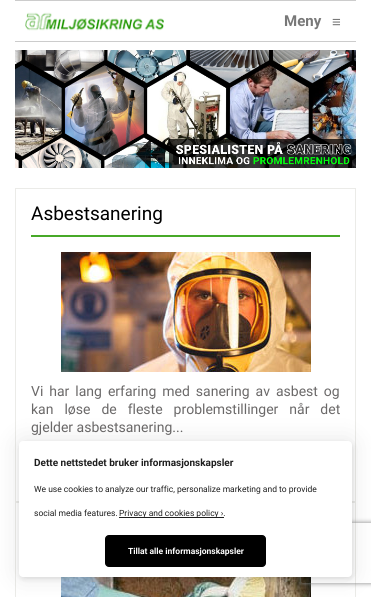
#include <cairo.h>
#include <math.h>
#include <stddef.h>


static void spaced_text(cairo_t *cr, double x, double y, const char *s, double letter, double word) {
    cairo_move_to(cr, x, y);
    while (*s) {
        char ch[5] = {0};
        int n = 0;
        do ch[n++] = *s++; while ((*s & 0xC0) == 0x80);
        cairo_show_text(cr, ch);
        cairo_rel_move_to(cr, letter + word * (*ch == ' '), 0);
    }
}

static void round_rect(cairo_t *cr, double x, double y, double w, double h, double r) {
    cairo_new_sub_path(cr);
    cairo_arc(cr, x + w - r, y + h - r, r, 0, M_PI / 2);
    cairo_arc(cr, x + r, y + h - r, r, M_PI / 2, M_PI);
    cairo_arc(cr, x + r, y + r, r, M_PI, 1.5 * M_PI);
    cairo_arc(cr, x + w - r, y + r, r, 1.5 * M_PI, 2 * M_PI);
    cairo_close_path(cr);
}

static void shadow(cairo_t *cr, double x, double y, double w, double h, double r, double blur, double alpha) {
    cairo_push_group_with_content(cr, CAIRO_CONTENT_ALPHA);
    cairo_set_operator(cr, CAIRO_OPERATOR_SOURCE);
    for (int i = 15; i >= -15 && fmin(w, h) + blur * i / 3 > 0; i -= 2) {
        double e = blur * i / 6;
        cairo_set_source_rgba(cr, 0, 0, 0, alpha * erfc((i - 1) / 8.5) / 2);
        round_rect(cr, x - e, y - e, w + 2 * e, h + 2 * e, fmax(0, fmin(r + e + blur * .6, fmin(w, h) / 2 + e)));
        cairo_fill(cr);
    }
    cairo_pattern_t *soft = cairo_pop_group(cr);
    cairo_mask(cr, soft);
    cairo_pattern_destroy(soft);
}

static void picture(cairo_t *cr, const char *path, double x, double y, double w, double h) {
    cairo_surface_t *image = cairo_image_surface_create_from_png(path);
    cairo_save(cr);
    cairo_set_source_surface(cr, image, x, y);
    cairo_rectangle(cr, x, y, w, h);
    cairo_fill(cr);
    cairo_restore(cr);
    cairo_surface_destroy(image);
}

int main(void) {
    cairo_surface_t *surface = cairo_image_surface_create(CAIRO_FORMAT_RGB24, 371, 597);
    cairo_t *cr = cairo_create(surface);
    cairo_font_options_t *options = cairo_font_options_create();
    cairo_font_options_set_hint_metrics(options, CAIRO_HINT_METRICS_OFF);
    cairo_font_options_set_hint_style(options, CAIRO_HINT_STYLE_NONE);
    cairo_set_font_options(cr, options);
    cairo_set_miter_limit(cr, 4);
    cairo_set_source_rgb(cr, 1, 1, 1);
    cairo_paint(cr);
    cairo_set_source_rgb(cr, 0.8, 0.8, 0.8);
    cairo_rectangle(cr, 15, 0, 341, 1);
    cairo_fill(cr);
    cairo_rectangle(cr, 15, 41, 341, 1);
    cairo_fill(cr);
    picture(cr, "img1.png", 25, 12, 139, 19);
    cairo_select_font_face(cr, "Roboto", CAIRO_FONT_SLANT_NORMAL, CAIRO_FONT_WEIGHT_BOLD);
    cairo_set_font_size(cr, 15);
    cairo_set_source_rgb(cr, 0.471, 0.471, 0.471);
    cairo_move_to(cr, 284, 26);
    cairo_show_text(cr, "Meny");
    cairo_select_font_face(cr, "Liberation Sans", CAIRO_FONT_SLANT_NORMAL, CAIRO_FONT_WEIGHT_BOLD);
    cairo_move_to(cr, 332, 27);
    cairo_show_text(cr, "≡");
    picture(cr, "img2.png", 15, 50, 341, 118);
    cairo_rectangle(cr, 15.5, 188.5, 340, 313);
    cairo_set_source_rgb(cr, 0.918, 0.918, 0.91);
    cairo_set_line_width(cr, 1);
    cairo_stroke(cr);
    cairo_set_source_rgb(cr, 0.278, 0.663, 0.157);
    cairo_rectangle(cr, 31, 235, 309, 2);
    cairo_fill(cr);
    cairo_select_font_face(cr, "Roboto", CAIRO_FONT_SLANT_NORMAL, CAIRO_FONT_WEIGHT_NORMAL);
    cairo_set_font_size(cr, 19);
    cairo_set_source_rgb(cr, 0, 0, 0);
    cairo_move_to(cr, 31, 220);
    cairo_show_text(cr, "Asbestsanering");
    picture(cr, "img3.png", 61, 252, 250, 120);
    cairo_set_font_size(cr, 14);
    cairo_set_source_rgb(cr, 0.42, 0.412, 0.412);
    spaced_text(cr, 31, 396, "Vi har lang erfaring med sanering av asbest og", 0, 2.5);
    spaced_text(cr, 31, 414, "kan løse de fleste problemstillinger når det", 0, 7.5);
    cairo_move_to(cr, 31, 432);
    cairo_show_text(cr, "gjelder asbestsanering...");
    cairo_rectangle(cr, 15.5, 502.5, 340, 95);
    cairo_set_source_rgb(cr, 0.918, 0.918, 0.91);
    cairo_stroke(cr);
    picture(cr, "img4.png", 61, 577, 250, 20);
    cairo_set_source_rgb(cr, 0, 0, 0);
    shadow(cr, 20, 443, 333, 136, 4, 2.5, 0.1);
    shadow(cr, 19, 441, 333, 136, 4, 12.5, 0.1);
    cairo_save(cr);
    cairo_set_fill_rule(cr, CAIRO_FILL_RULE_EVEN_ODD);
    cairo_new_path(cr);
    cairo_move_to(cr, 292, 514);
    cairo_line_to(cr, 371, 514);
    cairo_line_to(cr, 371, 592);
    cairo_line_to(cr, 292, 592);
    cairo_close_path(cr);
    cairo_move_to(cr, 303, 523);
    cairo_line_to(cr, 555, 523);
    cairo_curve_to(cr, 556, 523, 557, 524, 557, 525);
    cairo_line_to(cr, 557, 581);
    cairo_curve_to(cr, 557, 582, 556, 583, 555, 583);
    cairo_line_to(cr, 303, 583);
    cairo_curve_to(cr, 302, 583, 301, 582, 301, 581);
    cairo_line_to(cr, 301, 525);
    cairo_curve_to(cr, 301, 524, 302, 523, 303, 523);
    cairo_close_path(cr);
    cairo_clip(cr);
    cairo_set_source_rgb(cr, 0.502, 0.502, 0.502);
    shadow(cr, 301, 523, 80, 60, 2, 2.5, 1);
    cairo_restore(cr);
    cairo_set_source_rgb(cr, 1, 1, 1);
    round_rect(cr, 19, 441, 333, 136, 4);
    cairo_fill(cr);
    cairo_select_font_face(cr, "Roboto", CAIRO_FONT_SLANT_NORMAL, CAIRO_FONT_WEIGHT_BOLD);
    cairo_set_font_size(cr, 10);
    cairo_set_source_rgb(cr, 0.118, 0.118, 0.118);
    cairo_move_to(cr, 34, 466);
    cairo_show_text(cr, "Dette nettstedet bruker informasjonskapsler");
    cairo_select_font_face(cr, "Roboto", CAIRO_FONT_SLANT_NORMAL, CAIRO_FONT_WEIGHT_NORMAL);
    cairo_set_font_size(cr, 8.5);
    cairo_move_to(cr, 34, 492);
    cairo_show_text(cr, "We use cookies to analyze our traffic, personalize marketing and to provide");
    cairo_move_to(cr, 34, 516);
    cairo_show_text(cr, "social media features.");
    cairo_rectangle(cr, 119, 517, 105, 1);
    cairo_fill(cr);
    cairo_move_to(cr, 119, 516);
    cairo_show_text(cr, "Privacy and cookies policy ›.");
    cairo_set_source_rgb(cr, 0, 0, 0);
    round_rect(cr, 105.5, 535.5, 160, 31, 3.5);
    cairo_fill_preserve(cr);
    cairo_stroke(cr);
    cairo_select_font_face(cr, "Roboto", CAIRO_FONT_SLANT_NORMAL, CAIRO_FONT_WEIGHT_BOLD);
    cairo_set_source_rgb(cr, 1, 1, 1);
    cairo_move_to(cr, 128, 554);
    cairo_show_text(cr, "Tillat alle informasjonskapsler");
    cairo_surface_write_to_png(surface, "page.png");
    cairo_font_options_destroy(options);
    cairo_destroy(cr);
    cairo_surface_destroy(surface);
    return 0;
}
